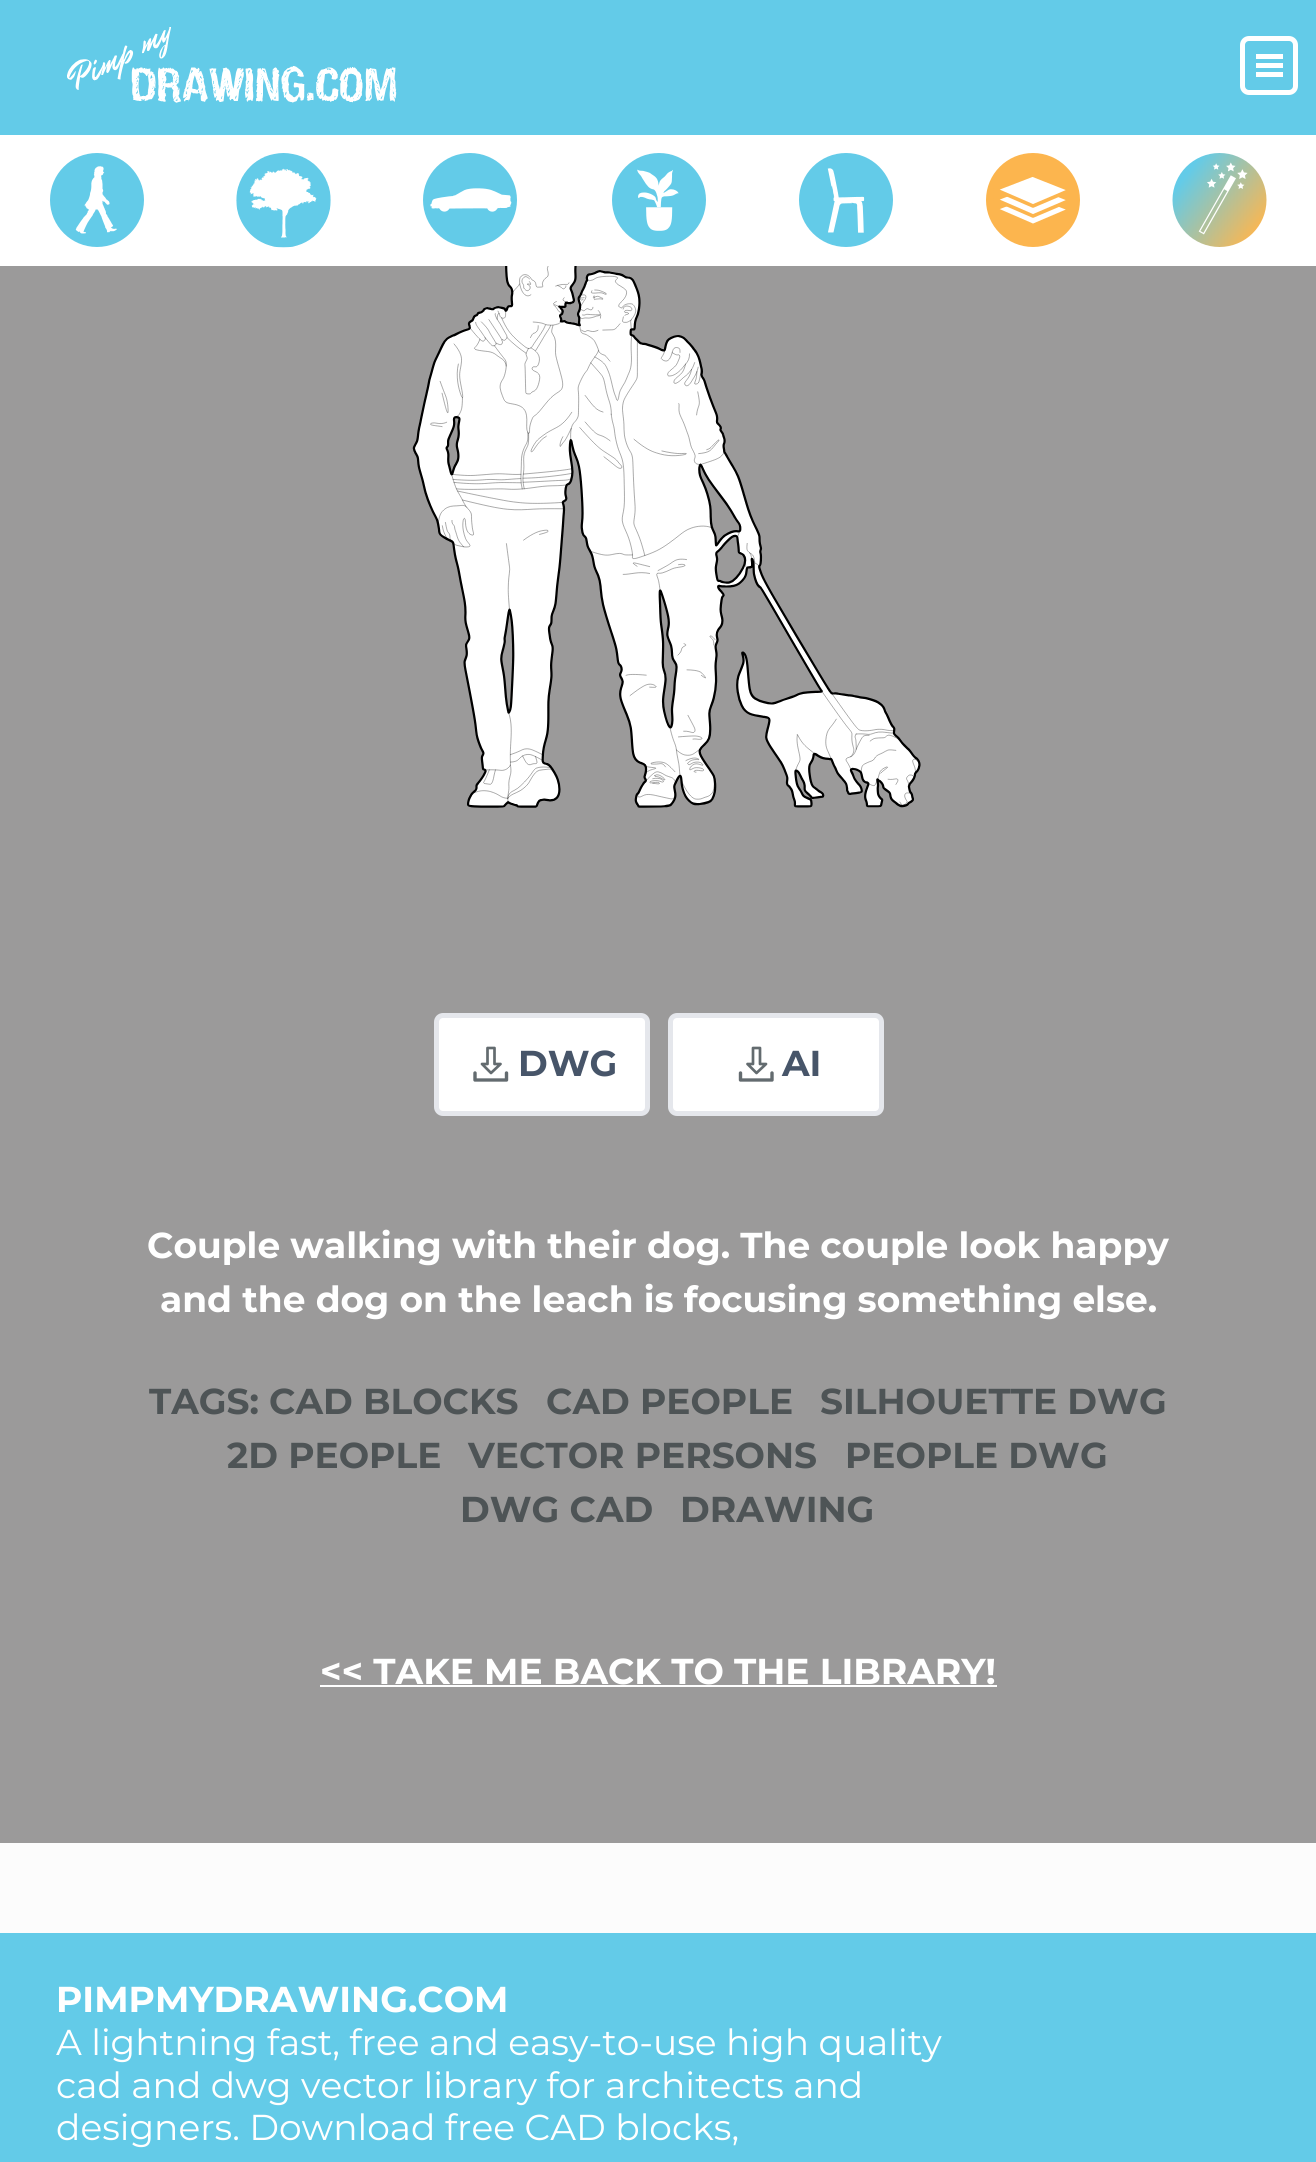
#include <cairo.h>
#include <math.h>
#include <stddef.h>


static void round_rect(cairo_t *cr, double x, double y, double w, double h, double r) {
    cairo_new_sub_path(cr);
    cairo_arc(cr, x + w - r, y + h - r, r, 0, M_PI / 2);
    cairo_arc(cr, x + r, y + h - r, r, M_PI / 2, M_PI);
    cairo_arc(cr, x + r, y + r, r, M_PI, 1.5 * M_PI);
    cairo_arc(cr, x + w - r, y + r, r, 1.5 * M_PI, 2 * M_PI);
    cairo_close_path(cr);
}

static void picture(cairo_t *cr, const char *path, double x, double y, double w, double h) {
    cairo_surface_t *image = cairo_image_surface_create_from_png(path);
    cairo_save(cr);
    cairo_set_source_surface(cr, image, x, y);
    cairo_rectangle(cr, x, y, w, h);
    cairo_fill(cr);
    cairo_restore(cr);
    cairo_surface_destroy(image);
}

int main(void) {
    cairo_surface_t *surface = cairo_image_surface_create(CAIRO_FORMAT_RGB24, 1316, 2162);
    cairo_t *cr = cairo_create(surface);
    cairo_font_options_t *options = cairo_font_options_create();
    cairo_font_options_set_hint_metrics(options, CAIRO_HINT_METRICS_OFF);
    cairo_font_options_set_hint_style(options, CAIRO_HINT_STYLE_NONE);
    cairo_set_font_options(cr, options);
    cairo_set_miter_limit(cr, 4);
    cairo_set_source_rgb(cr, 0.608, 0.604, 0.604);
    cairo_paint(cr);
    cairo_set_source_rgb(cr, 0.388, 0.796, 0.91);
    cairo_rectangle(cr, 0, 0, 1316, 135);
    cairo_fill(cr);
    picture(cr, "img1.png", 67, 27, 330, 76);
    round_rect(cr, 1242.5, 38.5, 53, 54, 6.5);
    cairo_set_source_rgb(cr, 1, 1, 1);
    cairo_set_line_width(cr, 5);
    cairo_stroke(cr);
    cairo_rectangle(cr, 1256, 54, 27, 5);
    cairo_fill(cr);
    cairo_rectangle(cr, 1256, 63, 27, 5);
    cairo_fill(cr);
    cairo_rectangle(cr, 1256, 72, 27, 5);
    cairo_fill(cr);
    cairo_rectangle(cr, 0, 135, 1316, 131);
    cairo_fill(cr);
    picture(cr, "img2.png", 50, 153, 94, 94);
    picture(cr, "img3.png", 236, 153, 95, 95);
    picture(cr, "img4.png", 423, 153, 94, 94);
    picture(cr, "img5.png", 612, 153, 94, 94);
    picture(cr, "img6.png", 799, 153, 94, 94);
    cairo_set_source_rgb(cr, 0.988, 0.71, 0.306);
    cairo_arc(cr, 1033, 200, 47, 0, 2 * M_PI);
    cairo_fill(cr);
    cairo_set_source_rgb(cr, 1, 1, 1);
    cairo_new_path(cr);
    cairo_move_to(cr, 1071, 210);
    cairo_line_to(cr, 1033, 226);
    cairo_line_to(cr, 995, 209);
    cairo_line_to(cr, 1033, 194);
    cairo_close_path(cr);
    cairo_fill(cr);
    cairo_new_path(cr);
    cairo_move_to(cr, 1070.5, 209.5);
    cairo_line_to(cr, 1033, 225.5);
    cairo_line_to(cr, 995, 209);
    cairo_line_to(cr, 1032.5, 194.5);
    cairo_close_path(cr);
    cairo_set_source_rgb(cr, 0.988, 0.71, 0.306);
    cairo_set_line_width(cr, 3.6);
    cairo_set_line_join(cr, CAIRO_LINE_JOIN_ROUND);
    cairo_stroke(cr);
    cairo_set_source_rgb(cr, 1, 1, 1);
    cairo_new_path(cr);
    cairo_move_to(cr, 1071, 200);
    cairo_line_to(cr, 1033, 216);
    cairo_line_to(cr, 995, 200);
    cairo_line_to(cr, 1033, 185);
    cairo_close_path(cr);
    cairo_fill(cr);
    cairo_new_path(cr);
    cairo_move_to(cr, 1070.5, 200);
    cairo_line_to(cr, 1033, 216);
    cairo_line_to(cr, 995, 199.5);
    cairo_line_to(cr, 1032.5, 185);
    cairo_close_path(cr);
    cairo_set_source_rgb(cr, 0.988, 0.71, 0.306);
    cairo_stroke(cr);
    cairo_set_source_rgb(cr, 1, 1, 1);
    cairo_new_path(cr);
    cairo_move_to(cr, 1071, 190);
    cairo_line_to(cr, 1033, 206);
    cairo_line_to(cr, 995, 190);
    cairo_line_to(cr, 1033, 175);
    cairo_close_path(cr);
    cairo_fill(cr);
    cairo_new_path(cr);
    cairo_move_to(cr, 1070.5, 190);
    cairo_line_to(cr, 1033, 206);
    cairo_line_to(cr, 995, 189.5);
    cairo_line_to(cr, 1032.5, 175);
    cairo_close_path(cr);
    cairo_set_source_rgb(cr, 0.988, 0.71, 0.306);
    cairo_set_line_cap(cr, CAIRO_LINE_CAP_ROUND);
    cairo_stroke(cr);
    picture(cr, "img7.png", 1172, 153, 95, 94);
    picture(cr, "img8.png", 412, 266, 509, 542);
    cairo_set_source_rgb(cr, 1, 1, 1);
    round_rect(cr, 436.5, 1015.5, 211, 98, 6.5);
    cairo_fill_preserve(cr);
    cairo_set_source_rgb(cr, 0.898, 0.906, 0.922);
    cairo_set_line_width(cr, 5);
    cairo_set_line_cap(cr, CAIRO_LINE_CAP_BUTT);
    cairo_set_line_join(cr, CAIRO_LINE_JOIN_MITER);
    cairo_stroke(cr);
    cairo_new_path(cr);
    cairo_move_to(cr, 475, 1073);
    cairo_line_to(cr, 475, 1080);
    cairo_line_to(cr, 506.5, 1080);
    cairo_line_to(cr, 506.5, 1073);
    cairo_set_source_rgb(cr, 0.388, 0.42, 0.435);
    cairo_set_line_width(cr, 3.4);
    cairo_set_line_cap(cr, CAIRO_LINE_CAP_ROUND);
    cairo_set_line_join(cr, CAIRO_LINE_JOIN_ROUND);
    cairo_stroke(cr);
    cairo_new_path(cr);
    cairo_move_to(cr, 487.5, 1048);
    cairo_line_to(cr, 487.5, 1064);
    cairo_line_to(cr, 482, 1064);
    cairo_line_to(cr, 491, 1073);
    cairo_line_to(cr, 500.5, 1064);
    cairo_line_to(cr, 494.5, 1064);
    cairo_line_to(cr, 494.5, 1048);
    cairo_close_path(cr);
    cairo_set_line_width(cr, 2.7);
    cairo_stroke(cr);
    cairo_select_font_face(cr, "Montserrat", CAIRO_FONT_SLANT_NORMAL, CAIRO_FONT_WEIGHT_BOLD);
    cairo_set_font_size(cr, 36);
    cairo_set_source_rgb(cr, 0.278, 0.333, 0.412);
    cairo_move_to(cr, 518, 1076);
    cairo_show_text(cr, "DWG");
    cairo_set_source_rgb(cr, 1, 1, 1);
    round_rect(cr, 670.5, 1015.5, 211, 98, 6.5);
    cairo_fill_preserve(cr);
    cairo_set_source_rgb(cr, 0.898, 0.906, 0.922);
    cairo_set_line_width(cr, 5);
    cairo_set_line_cap(cr, CAIRO_LINE_CAP_BUTT);
    cairo_set_line_join(cr, CAIRO_LINE_JOIN_MITER);
    cairo_stroke(cr);
    cairo_new_path(cr);
    cairo_move_to(cr, 740.5, 1073);
    cairo_line_to(cr, 740.5, 1080);
    cairo_line_to(cr, 772, 1080);
    cairo_line_to(cr, 772, 1073);
    cairo_set_source_rgb(cr, 0.388, 0.42, 0.435);
    cairo_set_line_width(cr, 3.4);
    cairo_set_line_cap(cr, CAIRO_LINE_CAP_ROUND);
    cairo_set_line_join(cr, CAIRO_LINE_JOIN_ROUND);
    cairo_stroke(cr);
    cairo_new_path(cr);
    cairo_move_to(cr, 753, 1048);
    cairo_line_to(cr, 753, 1064);
    cairo_line_to(cr, 747.5, 1064);
    cairo_line_to(cr, 756.5, 1073);
    cairo_line_to(cr, 766, 1064);
    cairo_line_to(cr, 760, 1064);
    cairo_line_to(cr, 760, 1048);
    cairo_close_path(cr);
    cairo_set_line_width(cr, 2.7);
    cairo_stroke(cr);
    cairo_set_source_rgb(cr, 0.278, 0.333, 0.412);
    cairo_move_to(cr, 782, 1076);
    cairo_show_text(cr, "AI");
    cairo_set_source_rgb(cr, 1, 1, 1);
    cairo_move_to(cr, 147, 1258);
    cairo_show_text(cr, "Couple walking with their dog. The couple look happy");
    cairo_move_to(cr, 160, 1312);
    cairo_show_text(cr, "and the dog on the leach is focusing something else.");
    cairo_set_source_rgb(cr, 0.306, 0.329, 0.337);
    cairo_move_to(cr, 149, 1414);
    cairo_show_text(cr, "TAGS:");
    cairo_move_to(cr, 269, 1414);
    cairo_show_text(cr, "CAD BLOCKS");
    cairo_move_to(cr, 546, 1414);
    cairo_show_text(cr, "CAD PEOPLE");
    cairo_move_to(cr, 820, 1414);
    cairo_show_text(cr, "SILHOUETTE DWG");
    cairo_move_to(cr, 227, 1468);
    cairo_show_text(cr, "2D PEOPLE");
    cairo_move_to(cr, 468, 1468);
    cairo_show_text(cr, "VECTOR PERSONS");
    cairo_move_to(cr, 845, 1468);
    cairo_show_text(cr, "PEOPLE DWG");
    cairo_move_to(cr, 460, 1522);
    cairo_show_text(cr, "DWG CAD");
    cairo_move_to(cr, 680, 1522);
    cairo_show_text(cr, "DRAWING");
    cairo_set_source_rgb(cr, 1, 1, 1);
    cairo_move_to(cr, 320, 1684);
    cairo_show_text(cr, "<< TAKE ME BACK TO THE LIBRARY!");
    cairo_rectangle(cr, 320, 1685, 677, 2);
    cairo_fill(cr);
    cairo_set_source_rgb(cr, 0.988, 0.988, 0.988);
    cairo_rectangle(cr, 0, 1843, 1316, 90);
    cairo_fill(cr);
    cairo_set_source_rgb(cr, 0.388, 0.796, 0.91);
    cairo_rectangle(cr, 0, 1933, 1316, 229);
    cairo_fill(cr);
    cairo_set_source_rgb(cr, 1, 1, 1);
    cairo_move_to(cr, 56, 2012);
    cairo_show_text(cr, "PIMPMYDRAWING.COM");
    cairo_select_font_face(cr, "Montserrat", CAIRO_FONT_SLANT_NORMAL, CAIRO_FONT_WEIGHT_NORMAL);
    cairo_move_to(cr, 56, 2055);
    cairo_show_text(cr, "A lightning fast, free and easy-to-use high quality");
    cairo_move_to(cr, 56, 2098);
    cairo_show_text(cr, "cad and dwg vector library for architects and");
    cairo_move_to(cr, 56, 2140);
    cairo_show_text(cr, "designers. Download free CAD blocks,");
    cairo_surface_write_to_png(surface, "page.png");
    cairo_font_options_destroy(options);
    cairo_destroy(cr);
    cairo_surface_destroy(surface);
    return 0;
}
